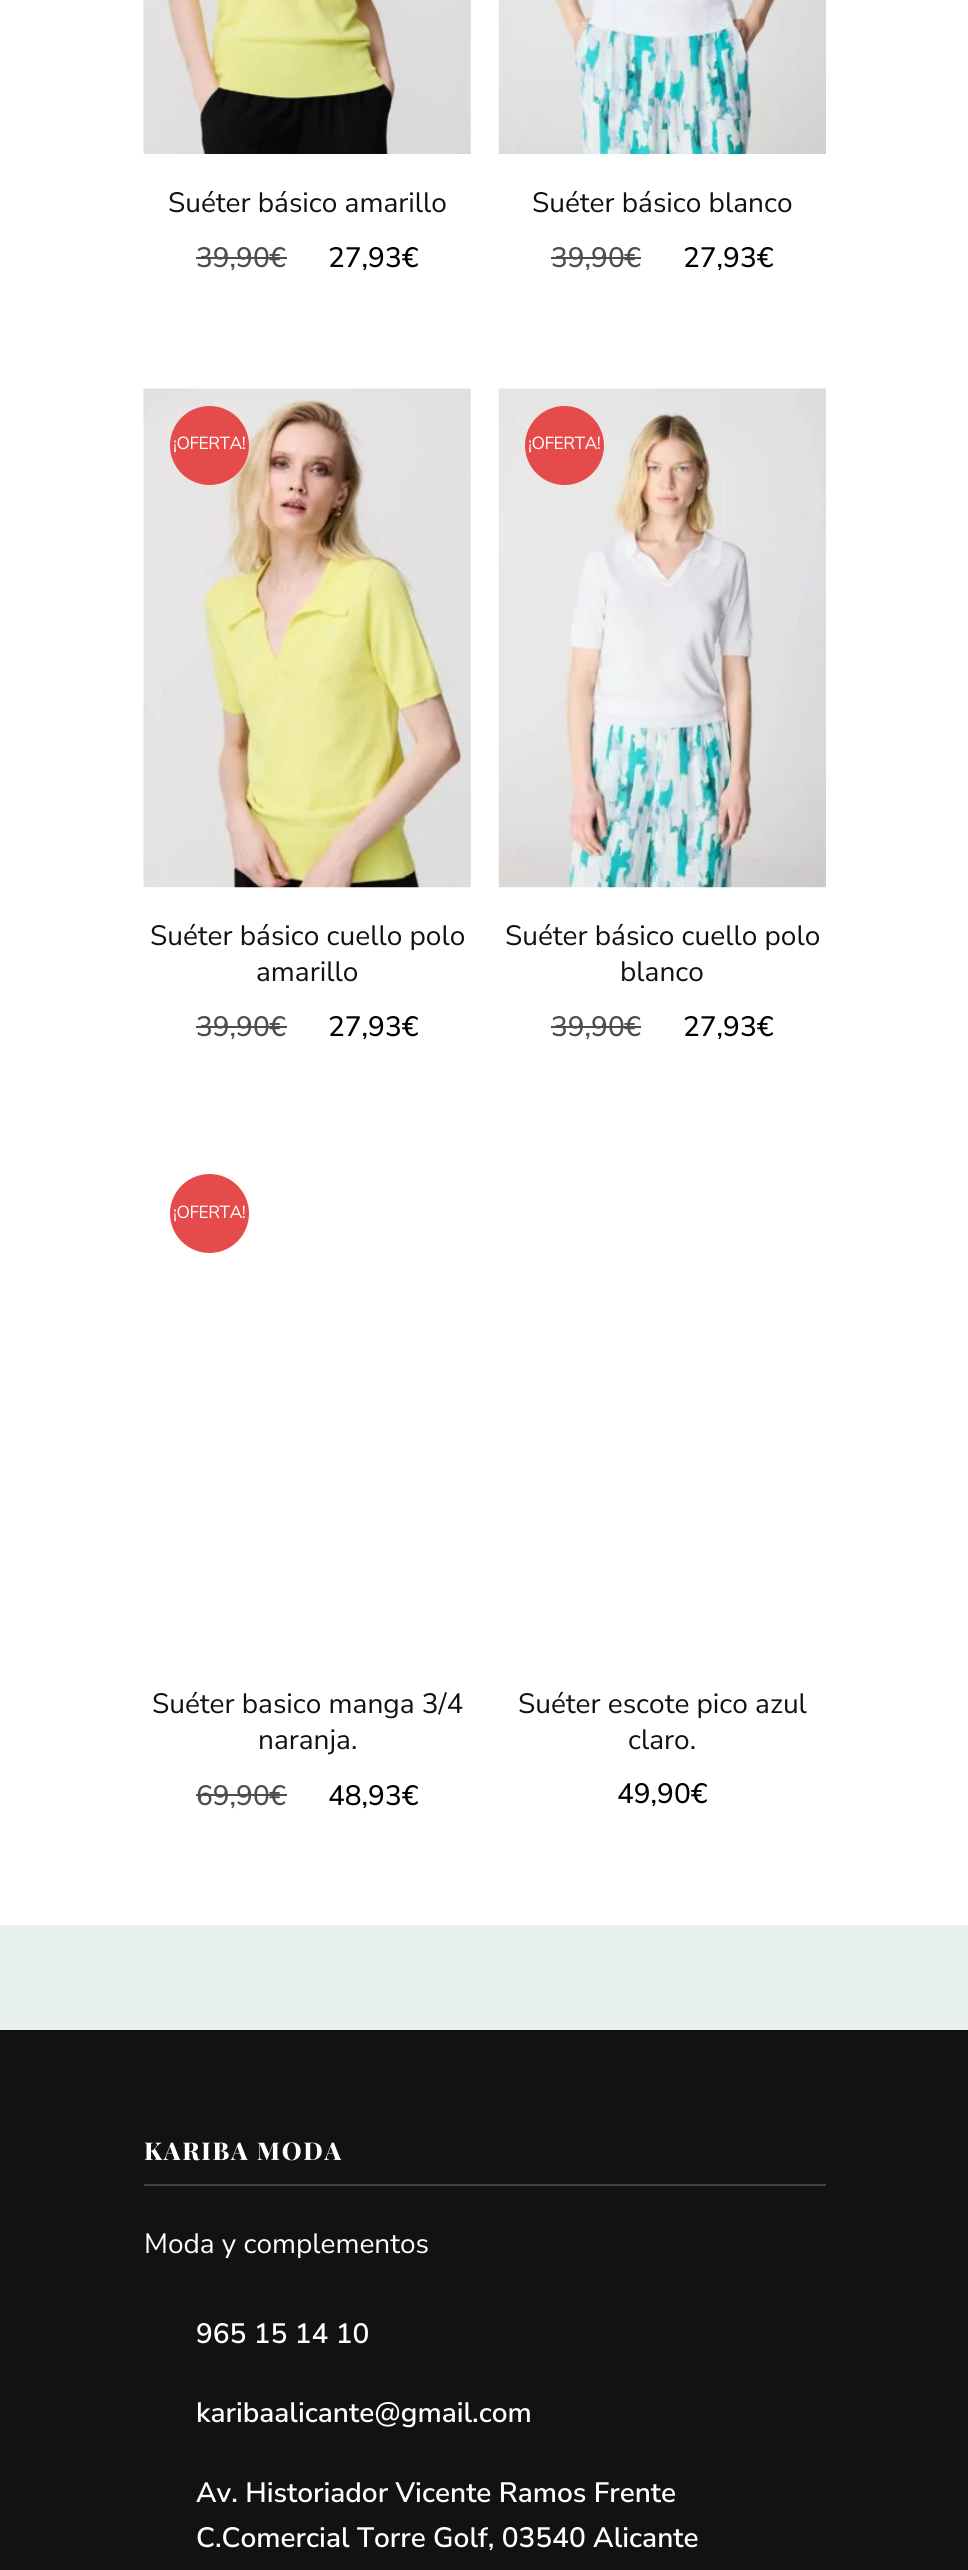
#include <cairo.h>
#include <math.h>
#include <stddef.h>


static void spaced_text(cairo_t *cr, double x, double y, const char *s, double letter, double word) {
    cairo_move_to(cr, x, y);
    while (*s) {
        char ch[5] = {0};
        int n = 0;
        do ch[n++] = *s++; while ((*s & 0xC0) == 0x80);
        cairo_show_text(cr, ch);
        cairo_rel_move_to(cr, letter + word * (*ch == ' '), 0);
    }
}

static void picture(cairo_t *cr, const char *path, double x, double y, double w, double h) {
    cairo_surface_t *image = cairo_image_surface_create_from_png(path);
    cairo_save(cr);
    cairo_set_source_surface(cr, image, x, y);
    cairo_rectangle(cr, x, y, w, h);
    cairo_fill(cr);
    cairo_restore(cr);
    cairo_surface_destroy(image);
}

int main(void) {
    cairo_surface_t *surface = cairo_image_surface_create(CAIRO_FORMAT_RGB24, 968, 2570);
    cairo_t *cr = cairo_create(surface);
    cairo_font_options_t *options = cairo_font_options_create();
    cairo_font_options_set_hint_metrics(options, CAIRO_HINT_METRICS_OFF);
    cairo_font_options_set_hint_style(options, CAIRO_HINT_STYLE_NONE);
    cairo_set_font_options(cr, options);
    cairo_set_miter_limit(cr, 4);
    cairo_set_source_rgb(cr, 1, 1, 1);
    cairo_paint(cr);
    picture(cr, "img1.png", 143, 0, 328, 154);
    cairo_select_font_face(cr, "Nunito Sans", CAIRO_FONT_SLANT_NORMAL, CAIRO_FONT_WEIGHT_NORMAL);
    cairo_set_font_size(cr, 28);
    cairo_set_source_rgb(cr, 0.067, 0.067, 0.067);
    cairo_move_to(cr, 168, 212);
    cairo_show_text(cr, "Suéter básico amarillo");
    cairo_select_font_face(cr, "Nunito Sans Medium", CAIRO_FONT_SLANT_NORMAL, CAIRO_FONT_WEIGHT_NORMAL);
    cairo_set_source_rgb(cr, 0.302, 0.302, 0.302);
    cairo_move_to(cr, 196, 267);
    cairo_show_text(cr, "39,90");
    cairo_rectangle(cr, 196, 257, 74, 2);
    cairo_fill(cr);
    cairo_move_to(cr, 269, 267);
    cairo_show_text(cr, "€");
    cairo_rectangle(cr, 270, 257, 17, 2);
    cairo_fill(cr);
    cairo_set_source_rgb(cr, 0, 0, 0);
    cairo_move_to(cr, 328, 267);
    cairo_show_text(cr, "27,93€");
    picture(cr, "img2.png", 498, 0, 328, 154);
    cairo_select_font_face(cr, "Nunito Sans", CAIRO_FONT_SLANT_NORMAL, CAIRO_FONT_WEIGHT_NORMAL);
    cairo_set_source_rgb(cr, 0.067, 0.067, 0.067);
    cairo_move_to(cr, 532, 212);
    cairo_show_text(cr, "Suéter básico blanco");
    cairo_select_font_face(cr, "Nunito Sans Medium", CAIRO_FONT_SLANT_NORMAL, CAIRO_FONT_WEIGHT_NORMAL);
    cairo_set_source_rgb(cr, 0.302, 0.302, 0.302);
    cairo_move_to(cr, 551, 267);
    cairo_show_text(cr, "39,90");
    cairo_rectangle(cr, 551, 257, 74, 2);
    cairo_fill(cr);
    cairo_move_to(cr, 624, 267);
    cairo_show_text(cr, "€");
    cairo_rectangle(cr, 625, 257, 16, 2);
    cairo_fill(cr);
    cairo_set_source_rgb(cr, 0, 0, 0);
    cairo_move_to(cr, 683, 267);
    cairo_show_text(cr, "27,93€");
    picture(cr, "img3.png", 143, 388, 328, 500);
    cairo_set_source_rgb(cr, 0.898, 0.294, 0.294);
    cairo_arc(cr, 209.5, 445.5, 39.5, 0, 2 * M_PI);
    cairo_fill(cr);
    cairo_select_font_face(cr, "Nunito Sans", CAIRO_FONT_SLANT_NORMAL, CAIRO_FONT_WEIGHT_NORMAL);
    cairo_set_font_size(cr, 17.5);
    cairo_set_source_rgb(cr, 1, 1, 1);
    spaced_text(cr, 173, 449, "¡OFERTA!", -0.5, 0);
    cairo_set_font_size(cr, 28);
    cairo_set_source_rgb(cr, 0.067, 0.067, 0.067);
    cairo_move_to(cr, 150, 945);
    cairo_show_text(cr, "Suéter básico cuello polo");
    cairo_move_to(cr, 256, 981);
    cairo_show_text(cr, "amarillo");
    cairo_select_font_face(cr, "Nunito Sans Medium", CAIRO_FONT_SLANT_NORMAL, CAIRO_FONT_WEIGHT_NORMAL);
    cairo_set_source_rgb(cr, 0.302, 0.302, 0.302);
    cairo_move_to(cr, 196, 1036);
    cairo_show_text(cr, "39,90");
    cairo_rectangle(cr, 196, 1026, 74, 2);
    cairo_fill(cr);
    cairo_move_to(cr, 269, 1036);
    cairo_show_text(cr, "€");
    cairo_rectangle(cr, 270, 1026, 17, 2);
    cairo_fill(cr);
    cairo_set_source_rgb(cr, 0, 0, 0);
    cairo_move_to(cr, 328, 1036);
    cairo_show_text(cr, "27,93€");
    picture(cr, "img4.png", 498, 388, 328, 500);
    cairo_set_source_rgb(cr, 0.898, 0.294, 0.294);
    cairo_arc(cr, 564.5, 445.5, 39.5, 0, 2 * M_PI);
    cairo_fill(cr);
    cairo_select_font_face(cr, "Nunito Sans", CAIRO_FONT_SLANT_NORMAL, CAIRO_FONT_WEIGHT_NORMAL);
    cairo_set_font_size(cr, 17.5);
    cairo_set_source_rgb(cr, 1, 1, 1);
    spaced_text(cr, 528, 449, "¡OFERTA!", -0.5, 0);
    cairo_set_font_size(cr, 28);
    cairo_set_source_rgb(cr, 0.067, 0.067, 0.067);
    cairo_move_to(cr, 505, 945);
    cairo_show_text(cr, "Suéter básico cuello polo");
    cairo_move_to(cr, 620, 981);
    cairo_show_text(cr, "blanco");
    cairo_select_font_face(cr, "Nunito Sans Medium", CAIRO_FONT_SLANT_NORMAL, CAIRO_FONT_WEIGHT_NORMAL);
    cairo_set_source_rgb(cr, 0.302, 0.302, 0.302);
    cairo_move_to(cr, 551, 1036);
    cairo_show_text(cr, "39,90");
    cairo_rectangle(cr, 551, 1026, 74, 2);
    cairo_fill(cr);
    cairo_move_to(cr, 624, 1036);
    cairo_show_text(cr, "€");
    cairo_rectangle(cr, 625, 1026, 16, 2);
    cairo_fill(cr);
    cairo_set_source_rgb(cr, 0, 0, 0);
    cairo_move_to(cr, 683, 1036);
    cairo_show_text(cr, "27,93€");
    cairo_set_source_rgb(cr, 0.898, 0.294, 0.294);
    cairo_new_path(cr);
    cairo_arc(cr, 209.5, 1213.5, 39.5, 0, 2 * M_PI);
    cairo_fill(cr);
    cairo_select_font_face(cr, "Nunito Sans", CAIRO_FONT_SLANT_NORMAL, CAIRO_FONT_WEIGHT_NORMAL);
    cairo_set_font_size(cr, 17.5);
    cairo_set_source_rgb(cr, 1, 1, 1);
    spaced_text(cr, 173, 1218, "¡OFERTA!", -0.5, 0);
    cairo_set_font_size(cr, 28);
    cairo_set_source_rgb(cr, 0.067, 0.067, 0.067);
    cairo_move_to(cr, 152, 1713);
    cairo_show_text(cr, "Suéter basico manga 3/4");
    cairo_move_to(cr, 258, 1749);
    cairo_show_text(cr, "naranja.");
    cairo_select_font_face(cr, "Nunito Sans Medium", CAIRO_FONT_SLANT_NORMAL, CAIRO_FONT_WEIGHT_NORMAL);
    cairo_set_source_rgb(cr, 0.302, 0.302, 0.302);
    cairo_move_to(cr, 196, 1805);
    cairo_show_text(cr, "69,90");
    cairo_rectangle(cr, 196, 1794, 74, 2);
    cairo_fill(cr);
    cairo_move_to(cr, 269, 1805);
    cairo_show_text(cr, "€");
    cairo_rectangle(cr, 270, 1794, 17, 2);
    cairo_fill(cr);
    cairo_set_source_rgb(cr, 0, 0, 0);
    cairo_move_to(cr, 328, 1805);
    cairo_show_text(cr, "48,93€");
    cairo_select_font_face(cr, "Nunito Sans", CAIRO_FONT_SLANT_NORMAL, CAIRO_FONT_WEIGHT_NORMAL);
    cairo_set_source_rgb(cr, 0.067, 0.067, 0.067);
    cairo_move_to(cr, 518, 1713);
    cairo_show_text(cr, "Suéter escote pico azul");
    cairo_move_to(cr, 628, 1749);
    cairo_show_text(cr, "claro.");
    cairo_select_font_face(cr, "Nunito Sans Medium", CAIRO_FONT_SLANT_NORMAL, CAIRO_FONT_WEIGHT_NORMAL);
    cairo_set_source_rgb(cr, 0, 0, 0);
    cairo_move_to(cr, 617, 1803);
    cairo_show_text(cr, "49,90€");
    cairo_set_source_rgb(cr, 0.914, 0.945, 0.941);
    cairo_rectangle(cr, 0, 1925, 968, 105);
    cairo_fill(cr);
    cairo_set_source_rgb(cr, 0.071, 0.071, 0.071);
    cairo_rectangle(cr, 0, 2030, 968, 540);
    cairo_fill(cr);
    cairo_set_source_rgb(cr, 0.255, 0.255, 0.255);
    cairo_rectangle(cr, 144, 2184, 682, 2);
    cairo_fill(cr);
    cairo_select_font_face(cr, "Playfair Display ExtraBold", CAIRO_FONT_SLANT_NORMAL, CAIRO_FONT_WEIGHT_NORMAL);
    cairo_set_font_size(cr, 24.5);
    cairo_set_source_rgb(cr, 1, 1, 1);
    spaced_text(cr, 144, 2160, "KARIBA MODA", 1.75, 0);
    cairo_select_font_face(cr, "Nunito Sans", CAIRO_FONT_SLANT_NORMAL, CAIRO_FONT_WEIGHT_NORMAL);
    cairo_set_font_size(cr, 28);
    cairo_move_to(cr, 144, 2253);
    cairo_show_text(cr, "Moda y complementos");
    cairo_select_font_face(cr, "Nunito Sans SemiBold", CAIRO_FONT_SLANT_NORMAL, CAIRO_FONT_WEIGHT_NORMAL);
    cairo_move_to(cr, 196, 2343);
    cairo_show_text(cr, "965 15 14 10");
    cairo_move_to(cr, 196, 2422);
    cairo_show_text(cr, "karibaalicante@gmail.com");
    cairo_move_to(cr, 196, 2502);
    cairo_show_text(cr, "Av. Historiador Vicente Ramos Frente");
    cairo_move_to(cr, 196, 2547);
    cairo_show_text(cr, "C.Comercial Torre Golf, 03540 Alicante");
    cairo_surface_write_to_png(surface, "page.png");
    cairo_font_options_destroy(options);
    cairo_destroy(cr);
    cairo_surface_destroy(surface);
    return 0;
}
